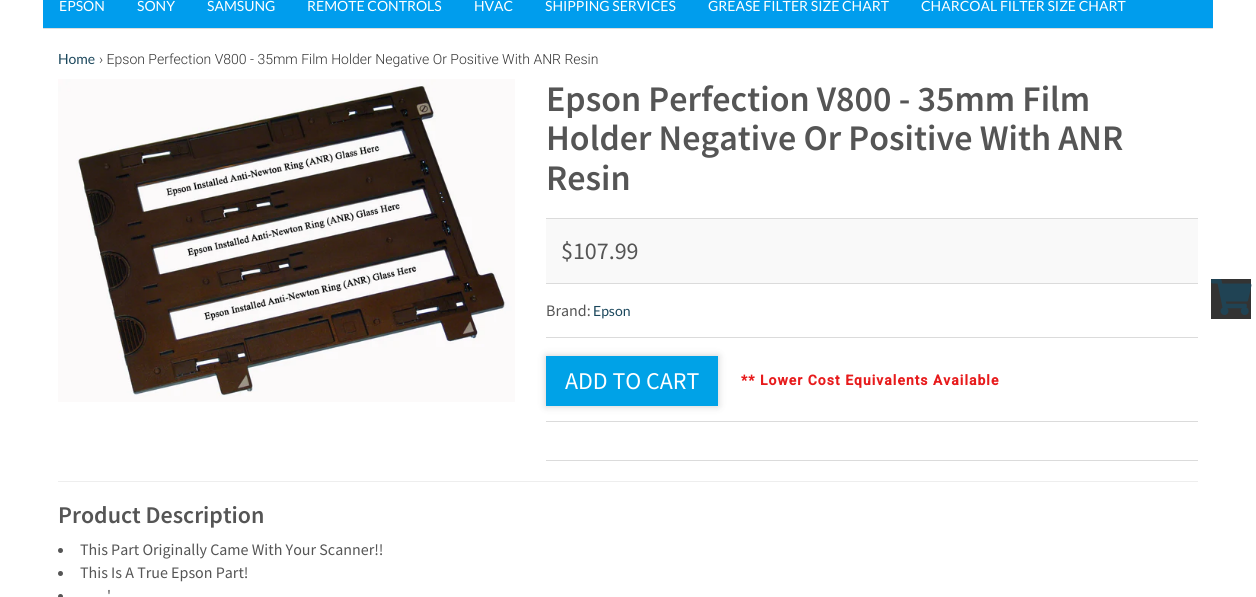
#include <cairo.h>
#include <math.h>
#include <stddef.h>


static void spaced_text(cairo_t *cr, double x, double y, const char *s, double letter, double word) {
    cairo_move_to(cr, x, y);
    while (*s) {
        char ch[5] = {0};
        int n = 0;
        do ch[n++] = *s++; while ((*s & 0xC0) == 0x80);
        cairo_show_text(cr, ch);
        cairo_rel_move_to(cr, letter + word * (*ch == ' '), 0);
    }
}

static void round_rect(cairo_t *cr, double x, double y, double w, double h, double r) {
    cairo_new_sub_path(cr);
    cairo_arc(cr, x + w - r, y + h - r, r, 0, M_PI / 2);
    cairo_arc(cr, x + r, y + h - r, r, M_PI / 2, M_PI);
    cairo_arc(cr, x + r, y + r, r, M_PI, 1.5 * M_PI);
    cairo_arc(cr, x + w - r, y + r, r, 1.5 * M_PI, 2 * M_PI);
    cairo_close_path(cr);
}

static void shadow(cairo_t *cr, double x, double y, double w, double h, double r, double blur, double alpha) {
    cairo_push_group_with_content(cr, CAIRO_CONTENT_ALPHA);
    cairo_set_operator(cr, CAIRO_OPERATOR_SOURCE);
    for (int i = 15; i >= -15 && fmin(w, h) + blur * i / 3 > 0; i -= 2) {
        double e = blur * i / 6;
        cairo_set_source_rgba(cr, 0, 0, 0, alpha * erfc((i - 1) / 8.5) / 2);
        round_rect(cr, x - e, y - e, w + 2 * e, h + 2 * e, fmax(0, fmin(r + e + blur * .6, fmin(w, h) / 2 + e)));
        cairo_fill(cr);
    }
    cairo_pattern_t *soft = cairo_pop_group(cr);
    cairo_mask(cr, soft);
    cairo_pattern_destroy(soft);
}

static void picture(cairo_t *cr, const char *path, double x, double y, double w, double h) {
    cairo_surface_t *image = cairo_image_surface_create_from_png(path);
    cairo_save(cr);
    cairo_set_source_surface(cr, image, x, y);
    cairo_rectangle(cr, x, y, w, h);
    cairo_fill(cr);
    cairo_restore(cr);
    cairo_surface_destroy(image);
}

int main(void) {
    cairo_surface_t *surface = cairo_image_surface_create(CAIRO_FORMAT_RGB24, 1256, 597);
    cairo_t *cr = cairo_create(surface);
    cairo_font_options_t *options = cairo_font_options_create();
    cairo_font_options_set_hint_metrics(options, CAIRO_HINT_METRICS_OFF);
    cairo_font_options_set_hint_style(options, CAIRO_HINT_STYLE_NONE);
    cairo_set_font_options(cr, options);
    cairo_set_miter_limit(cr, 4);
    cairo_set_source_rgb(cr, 1, 1, 1);
    cairo_paint(cr);
    cairo_set_source_rgb(cr, 0, 0.616, 0.929);
    cairo_rectangle(cr, 43, 0, 1170, 28);
    cairo_fill(cr);
    cairo_set_source_rgb(cr, 0.867, 0.867, 0.867);
    cairo_rectangle(cr, 43, 28, 1170, 1);
    cairo_fill(cr);
    cairo_select_font_face(cr, "Lato", CAIRO_FONT_SLANT_NORMAL, CAIRO_FONT_WEIGHT_NORMAL);
    cairo_set_font_size(cr, 14);
    cairo_set_source_rgb(cr, 1, 1, 1);
    cairo_move_to(cr, 59, 11);
    cairo_show_text(cr, "EPSON");
    cairo_move_to(cr, 137, 11);
    cairo_show_text(cr, "SONY");
    cairo_move_to(cr, 207, 11);
    cairo_show_text(cr, "SAMSUNG");
    cairo_move_to(cr, 307, 11);
    cairo_show_text(cr, "REMOTE CONTROLS");
    cairo_move_to(cr, 474, 11);
    cairo_show_text(cr, "HVAC");
    cairo_move_to(cr, 545, 11);
    cairo_show_text(cr, "SHIPPING SERVICES");
    cairo_move_to(cr, 708, 11);
    cairo_show_text(cr, "GREASE FILTER SIZE CHART");
    cairo_move_to(cr, 921, 11);
    cairo_show_text(cr, "CHARCOAL FILTER SIZE CHART");
    cairo_set_source_rgb(cr, 0.106, 0.278, 0.361);
    cairo_move_to(cr, 58, 64);
    cairo_show_text(cr, "Home");
    cairo_select_font_face(cr, "Roboto Light", CAIRO_FONT_SLANT_NORMAL, CAIRO_FONT_WEIGHT_NORMAL);
    cairo_set_source_rgb(cr, 0.2, 0.2, 0.2);
    cairo_move_to(cr, 99, 64);
    cairo_show_text(cr, "› Epson Perfection V800 - 35mm Film Holder Negative Or Positive With ANR Resin");
    picture(cr, "img1.png", 58, 79, 457, 323);
    cairo_select_font_face(cr, "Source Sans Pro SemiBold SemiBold", CAIRO_FONT_SLANT_NORMAL, CAIRO_FONT_WEIGHT_NORMAL);
    cairo_set_font_size(cr, 36);
    cairo_set_source_rgb(cr, 0.333, 0.333, 0.333);
    cairo_move_to(cr, 546, 111);
    cairo_show_text(cr, "Epson Perfection V800 - 35mm Film");
    cairo_move_to(cr, 546, 150);
    cairo_show_text(cr, "Holder Negative Or Positive With ANR");
    cairo_move_to(cr, 546, 190);
    cairo_show_text(cr, "Resin");
    cairo_set_source_rgb(cr, 0.973, 0.973, 0.973);
    cairo_rectangle(cr, 546, 219, 652, 64);
    cairo_fill(cr);
    cairo_set_source_rgb(cr, 0.859, 0.859, 0.859);
    cairo_rectangle(cr, 546, 218, 652, 1);
    cairo_fill(cr);
    cairo_rectangle(cr, 546, 283, 652, 1);
    cairo_fill(cr);
    cairo_select_font_face(cr, "Source Sans Pro", CAIRO_FONT_SLANT_NORMAL, CAIRO_FONT_WEIGHT_NORMAL);
    cairo_set_font_size(cr, 24);
    cairo_set_source_rgb(cr, 0.333, 0.333, 0.333);
    cairo_move_to(cr, 561, 259);
    cairo_show_text(cr, "$107.99");
    cairo_set_source_rgb(cr, 0.859, 0.859, 0.859);
    cairo_rectangle(cr, 546, 337, 652, 1);
    cairo_fill(cr);
    cairo_set_font_size(cr, 16);
    cairo_set_source_rgb(cr, 0.333, 0.333, 0.333);
    cairo_move_to(cr, 546, 316);
    cairo_show_text(cr, "Brand:");
    cairo_select_font_face(cr, "Lato", CAIRO_FONT_SLANT_NORMAL, CAIRO_FONT_WEIGHT_NORMAL);
    cairo_set_font_size(cr, 14);
    cairo_set_source_rgb(cr, 0.106, 0.278, 0.361);
    cairo_move_to(cr, 593, 316);
    cairo_show_text(cr, "Epson");
    cairo_set_source_rgb(cr, 0.859, 0.859, 0.859);
    cairo_rectangle(cr, 546, 421, 652, 1);
    cairo_fill(cr);
    cairo_set_source_rgb(cr, 0, 0, 0);
    shadow(cr, 546, 356, 172, 50, 0, 4, 0.2);
    cairo_set_source_rgb(cr, 0, 0.635, 0.906);
    cairo_rectangle(cr, 546, 356, 172, 50);
    cairo_fill(cr);
    cairo_select_font_face(cr, "Source Sans Pro", CAIRO_FONT_SLANT_NORMAL, CAIRO_FONT_WEIGHT_NORMAL);
    cairo_set_font_size(cr, 24);
    cairo_set_source_rgb(cr, 1, 1, 1);
    cairo_move_to(cr, 565, 389);
    cairo_show_text(cr, "ADD TO CART");
    cairo_select_font_face(cr, "Roboto", CAIRO_FONT_SLANT_NORMAL, CAIRO_FONT_WEIGHT_BOLD);
    cairo_set_font_size(cr, 14);
    cairo_set_source_rgb(cr, 0.906, 0.106, 0.11);
    spaced_text(cr, 741, 385, "** Lower Cost Equivalents Available", 1, 0);
    cairo_set_source_rgb(cr, 0.859, 0.859, 0.859);
    cairo_rectangle(cr, 546, 460, 652, 1);
    cairo_fill(cr);
    cairo_set_source_rgb(cr, 0.933, 0.933, 0.933);
    cairo_rectangle(cr, 58, 481, 1140, 1);
    cairo_fill(cr);
    cairo_select_font_face(cr, "Source Sans Pro SemiBold SemiBold", CAIRO_FONT_SLANT_NORMAL, CAIRO_FONT_WEIGHT_NORMAL);
    cairo_set_font_size(cr, 24);
    cairo_set_source_rgb(cr, 0.333, 0.333, 0.333);
    cairo_move_to(cr, 58, 523);
    cairo_show_text(cr, "Product Description");
    cairo_new_path(cr);
    cairo_arc(cr, 60.5, 550.5, 2.5, 0, 2 * M_PI);
    cairo_fill(cr);
    cairo_select_font_face(cr, "Source Sans Pro", CAIRO_FONT_SLANT_NORMAL, CAIRO_FONT_WEIGHT_NORMAL);
    cairo_set_font_size(cr, 16);
    cairo_move_to(cr, 80, 555);
    cairo_show_text(cr, "This Part Originally Came With Your Scanner!!");
    cairo_new_path(cr);
    cairo_arc(cr, 60.5, 573.5, 2.5, 0, 2 * M_PI);
    cairo_fill(cr);
    cairo_move_to(cr, 80, 578);
    cairo_show_text(cr, "This Is A True Epson Part!");
    cairo_move_to(cr, 107, 601);
    cairo_show_text(cr, "'");
    cairo_new_path(cr);
    cairo_arc(cr, 60.5, 596.5, 2.5, 0, 2 * M_PI);
    cairo_fill(cr);
    cairo_set_source_rgb(cr, 0.2, 0.2, 0.2);
    cairo_rectangle(cr, 1211, 279, 40, 40);
    cairo_fill(cr);
    picture(cr, "img2.png", 1211, 279, 41, 36);
    cairo_surface_write_to_png(surface, "page.png");
    cairo_font_options_destroy(options);
    cairo_destroy(cr);
    cairo_surface_destroy(surface);
    return 0;
}
